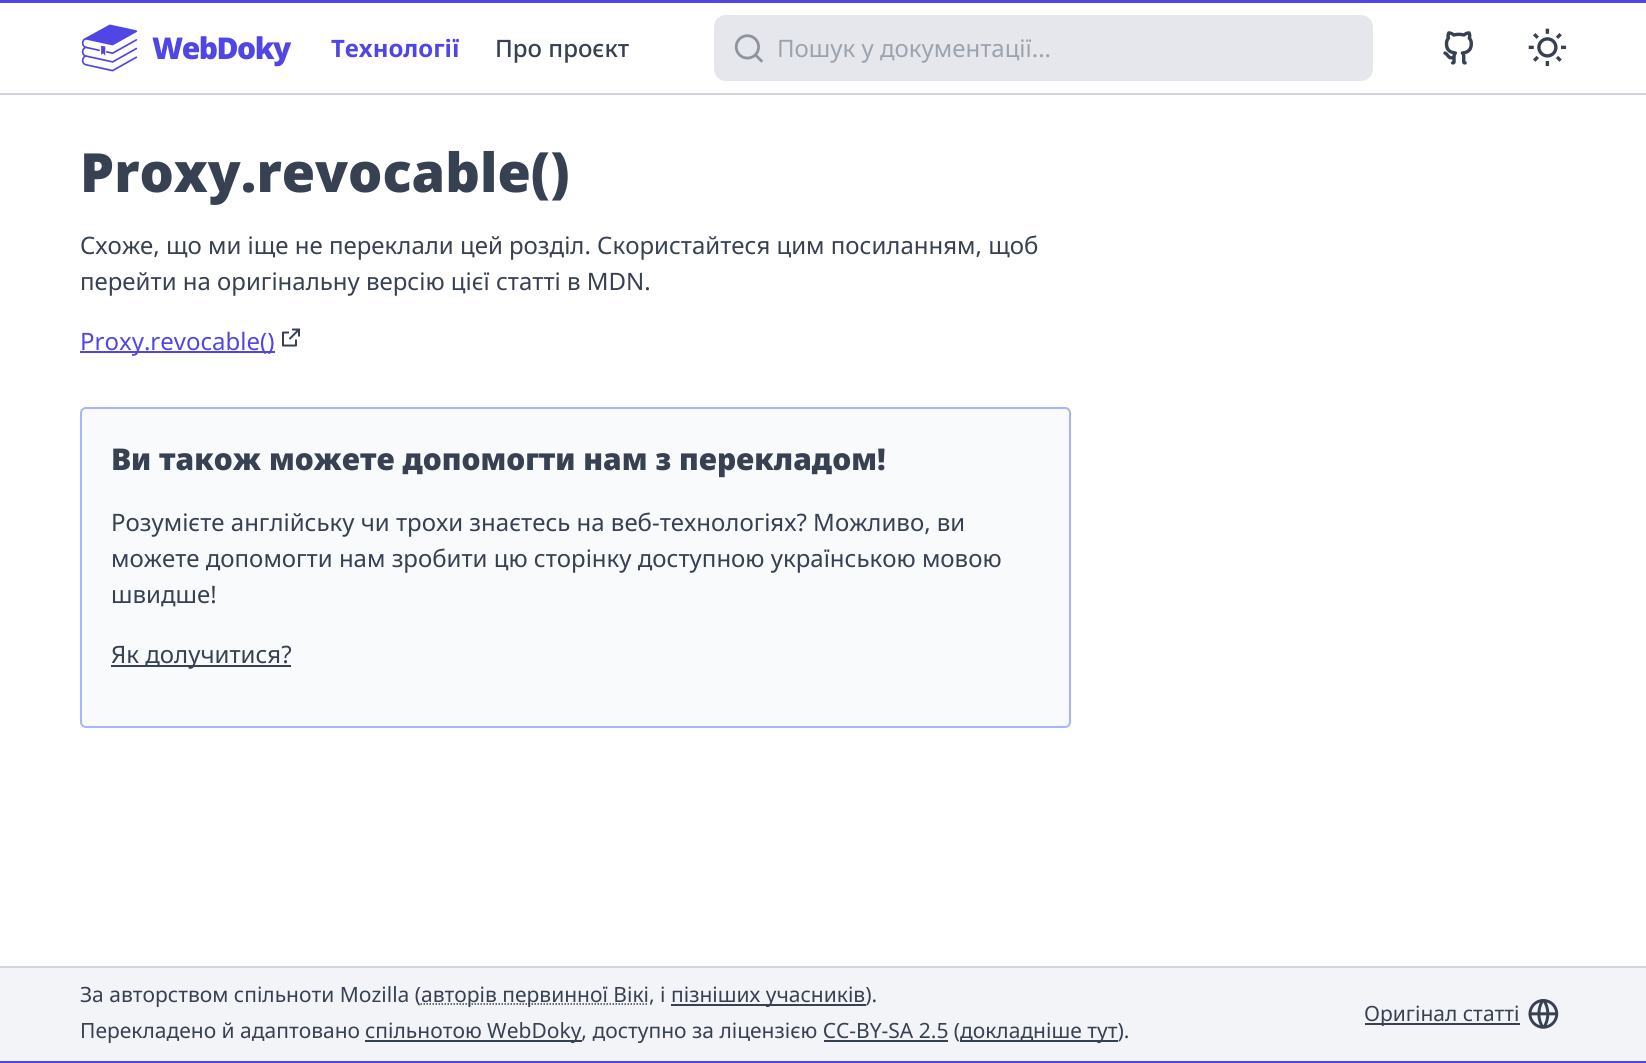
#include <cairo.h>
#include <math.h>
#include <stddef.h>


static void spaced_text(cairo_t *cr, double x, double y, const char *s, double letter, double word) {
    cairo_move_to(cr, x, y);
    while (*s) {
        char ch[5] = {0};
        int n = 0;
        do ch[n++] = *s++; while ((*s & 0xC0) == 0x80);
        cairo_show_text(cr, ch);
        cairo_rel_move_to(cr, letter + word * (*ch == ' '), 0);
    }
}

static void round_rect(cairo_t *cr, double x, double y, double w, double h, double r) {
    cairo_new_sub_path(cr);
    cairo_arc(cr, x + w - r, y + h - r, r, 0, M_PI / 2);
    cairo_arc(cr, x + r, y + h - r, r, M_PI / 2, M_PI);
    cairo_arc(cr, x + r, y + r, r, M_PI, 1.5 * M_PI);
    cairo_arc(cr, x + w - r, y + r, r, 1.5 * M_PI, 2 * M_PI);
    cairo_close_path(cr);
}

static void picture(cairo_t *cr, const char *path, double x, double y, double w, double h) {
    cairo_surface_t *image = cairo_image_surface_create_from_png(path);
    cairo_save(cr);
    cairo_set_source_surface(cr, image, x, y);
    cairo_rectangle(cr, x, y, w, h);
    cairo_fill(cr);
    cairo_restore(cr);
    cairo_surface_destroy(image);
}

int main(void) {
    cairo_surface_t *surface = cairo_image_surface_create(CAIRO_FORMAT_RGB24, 1646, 1063);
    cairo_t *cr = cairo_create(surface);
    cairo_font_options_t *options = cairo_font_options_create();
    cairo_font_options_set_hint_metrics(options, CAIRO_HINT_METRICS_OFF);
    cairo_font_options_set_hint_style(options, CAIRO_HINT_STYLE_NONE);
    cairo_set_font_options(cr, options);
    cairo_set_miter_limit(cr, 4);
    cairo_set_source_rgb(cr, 1, 1, 1);
    cairo_paint(cr);
    cairo_set_source_rgb(cr, 0.82, 0.835, 0.859);
    cairo_rectangle(cr, 0, 93, 1646, 2);
    cairo_fill(cr);
    cairo_set_source_rgb(cr, 0.31, 0.275, 0.898);
    cairo_rectangle(cr, 0, 0, 1646, 3);
    cairo_fill(cr);
    picture(cr, "img1.png", 81, 24, 57, 48);
    cairo_select_font_face(cr, "Noto Sans Black", CAIRO_FONT_SLANT_NORMAL, CAIRO_FONT_WEIGHT_NORMAL);
    cairo_set_font_size(cr, 30);
    spaced_text(cr, 152, 59, "WebDoky", -1.5, 0);
    cairo_select_font_face(cr, "Noto Sans", CAIRO_FONT_SLANT_NORMAL, CAIRO_FONT_WEIGHT_BOLD);
    cairo_set_font_size(cr, 24);
    cairo_move_to(cr, 331, 57);
    cairo_show_text(cr, "Технології");
    cairo_select_font_face(cr, "Noto Sans Medium", CAIRO_FONT_SLANT_NORMAL, CAIRO_FONT_WEIGHT_NORMAL);
    cairo_set_source_rgb(cr, 0.216, 0.255, 0.318);
    cairo_move_to(cr, 495, 57);
    cairo_show_text(cr, "Про проєкт");
    cairo_set_source_rgb(cr, 0.898, 0.906, 0.922);
    round_rect(cr, 715.5, 16.5, 656, 63, 10.5);
    cairo_fill_preserve(cr);
    cairo_set_line_width(cr, 3);
    cairo_stroke(cr);
    picture(cr, "img2.png", 734, 34, 30, 29);
    cairo_select_font_face(cr, "Noto Sans", CAIRO_FONT_SLANT_NORMAL, CAIRO_FONT_WEIGHT_NORMAL);
    cairo_set_source_rgb(cr, 0.612, 0.639, 0.686);
    cairo_move_to(cr, 777, 57);
    cairo_show_text(cr, "Пошук у документації...");
    picture(cr, "img3.png", 1443, 31, 30, 34);
    picture(cr, "img4.png", 1528, 28, 39, 39);
    cairo_select_font_face(cr, "Noto Sans Black", CAIRO_FONT_SLANT_NORMAL, CAIRO_FONT_WEIGHT_NORMAL);
    cairo_set_font_size(cr, 54);
    cairo_set_source_rgb(cr, 0.216, 0.255, 0.318);
    cairo_move_to(cr, 80, 192);
    cairo_show_text(cr, "Proxy.revocable()");
    cairo_select_font_face(cr, "Noto Sans", CAIRO_FONT_SLANT_NORMAL, CAIRO_FONT_WEIGHT_NORMAL);
    cairo_set_font_size(cr, 24);
    cairo_move_to(cr, 80, 254);
    cairo_show_text(cr, "Схоже, що ми іще не переклали цей розділ. Скористайтеся цим посиланням, щоб");
    cairo_move_to(cr, 80, 290);
    cairo_show_text(cr, "перейти на оригінальну версію цієї статті в MDN.");
    cairo_set_source_rgb(cr, 0.31, 0.275, 0.898);
    cairo_rectangle(cr, 80, 351, 195, 2);
    cairo_fill(cr);
    cairo_move_to(cr, 80, 350);
    cairo_show_text(cr, "Proxy.revocable()");
    picture(cr, "img5.png", 282, 328, 18, 19);
    cairo_set_source_rgb(cr, 0.976, 0.98, 0.984);
    round_rect(cr, 81, 408, 989, 319, 5);
    cairo_fill_preserve(cr);
    cairo_set_source_rgb(cr, 0.647, 0.706, 0.988);
    cairo_set_line_width(cr, 2);
    cairo_stroke(cr);
    cairo_select_font_face(cr, "Noto Sans Black", CAIRO_FONT_SLANT_NORMAL, CAIRO_FONT_WEIGHT_NORMAL);
    cairo_set_font_size(cr, 30);
    cairo_set_source_rgb(cr, 0.216, 0.255, 0.318);
    cairo_move_to(cr, 111, 470);
    cairo_show_text(cr, "Ви також можете допомогти нам з перекладом!");
    cairo_select_font_face(cr, "Noto Sans", CAIRO_FONT_SLANT_NORMAL, CAIRO_FONT_WEIGHT_NORMAL);
    cairo_set_font_size(cr, 24);
    cairo_move_to(cr, 111, 531);
    cairo_show_text(cr, "Розумієте англійську чи трохи знаєтесь на веб-технологіях? Можливо, ви");
    cairo_move_to(cr, 111, 567);
    cairo_show_text(cr, "можете допомогти нам зробити цю сторінку доступною українською мовою");
    cairo_move_to(cr, 111, 603);
    cairo_show_text(cr, "швидше!");
    cairo_rectangle(cr, 111, 665, 180, 2);
    cairo_fill(cr);
    cairo_move_to(cr, 111, 663);
    cairo_show_text(cr, "Як долучитися?");
    cairo_set_source_rgb(cr, 0.82, 0.835, 0.859);
    cairo_rectangle(cr, 0, 966, 1646, 2);
    cairo_fill(cr);
    cairo_set_source_rgb(cr, 0.953, 0.957, 0.965);
    cairo_rectangle(cr, 0, 968, 1646, 93);
    cairo_fill(cr);
    cairo_set_source_rgb(cr, 0.31, 0.275, 0.898);
    cairo_rectangle(cr, 0, 1061, 1646, 2);
    cairo_fill(cr);
    cairo_set_font_size(cr, 21);
    cairo_set_source_rgb(cr, 0.216, 0.255, 0.318);
    cairo_move_to(cr, 80, 1002);
    cairo_show_text(cr, "За авторством спільноти Mozilla (");
    cairo_new_path(cr);
    cairo_move_to(cr, 420.5, 1004);
    cairo_line_to(cr, 648.5, 1004);
    cairo_set_line_width(cr, 1.5);
    cairo_set_dash(cr, (double[]){1.5, 1.5}, 2, 0);
    cairo_stroke(cr);
    cairo_move_to(cr, 421, 1002);
    cairo_show_text(cr, "авторів первинної Вікі, і");
    cairo_rectangle(cr, 671, 1004, 195, 2);
    cairo_fill(cr);
    cairo_move_to(cr, 671, 1002);
    cairo_show_text(cr, "пізніших учасників).");
    cairo_move_to(cr, 80, 1038);
    cairo_show_text(cr, "Перекладено й адаптовано");
    cairo_rectangle(cr, 365, 1040, 217, 2);
    cairo_fill(cr);
    cairo_move_to(cr, 365, 1038);
    cairo_show_text(cr, "спільнотою WebDoky, доступно за ліцензією CC-BY-SA 2.5 (");
    cairo_rectangle(cr, 960, 1040, 158, 2);
    cairo_fill(cr);
    cairo_move_to(cr, 960, 1038);
    cairo_show_text(cr, "докладніше тут).");
    cairo_rectangle(cr, 824, 1040, 124, 2);
    cairo_fill(cr);
    cairo_rectangle(cr, 1365, 1023, 155, 2);
    cairo_fill(cr);
    cairo_move_to(cr, 1364, 1021);
    cairo_show_text(cr, "Оригінал статті");
    picture(cr, "img6.png", 1528, 999, 31, 30);
    cairo_surface_write_to_png(surface, "page.png");
    cairo_font_options_destroy(options);
    cairo_destroy(cr);
    cairo_surface_destroy(surface);
    return 0;
}
